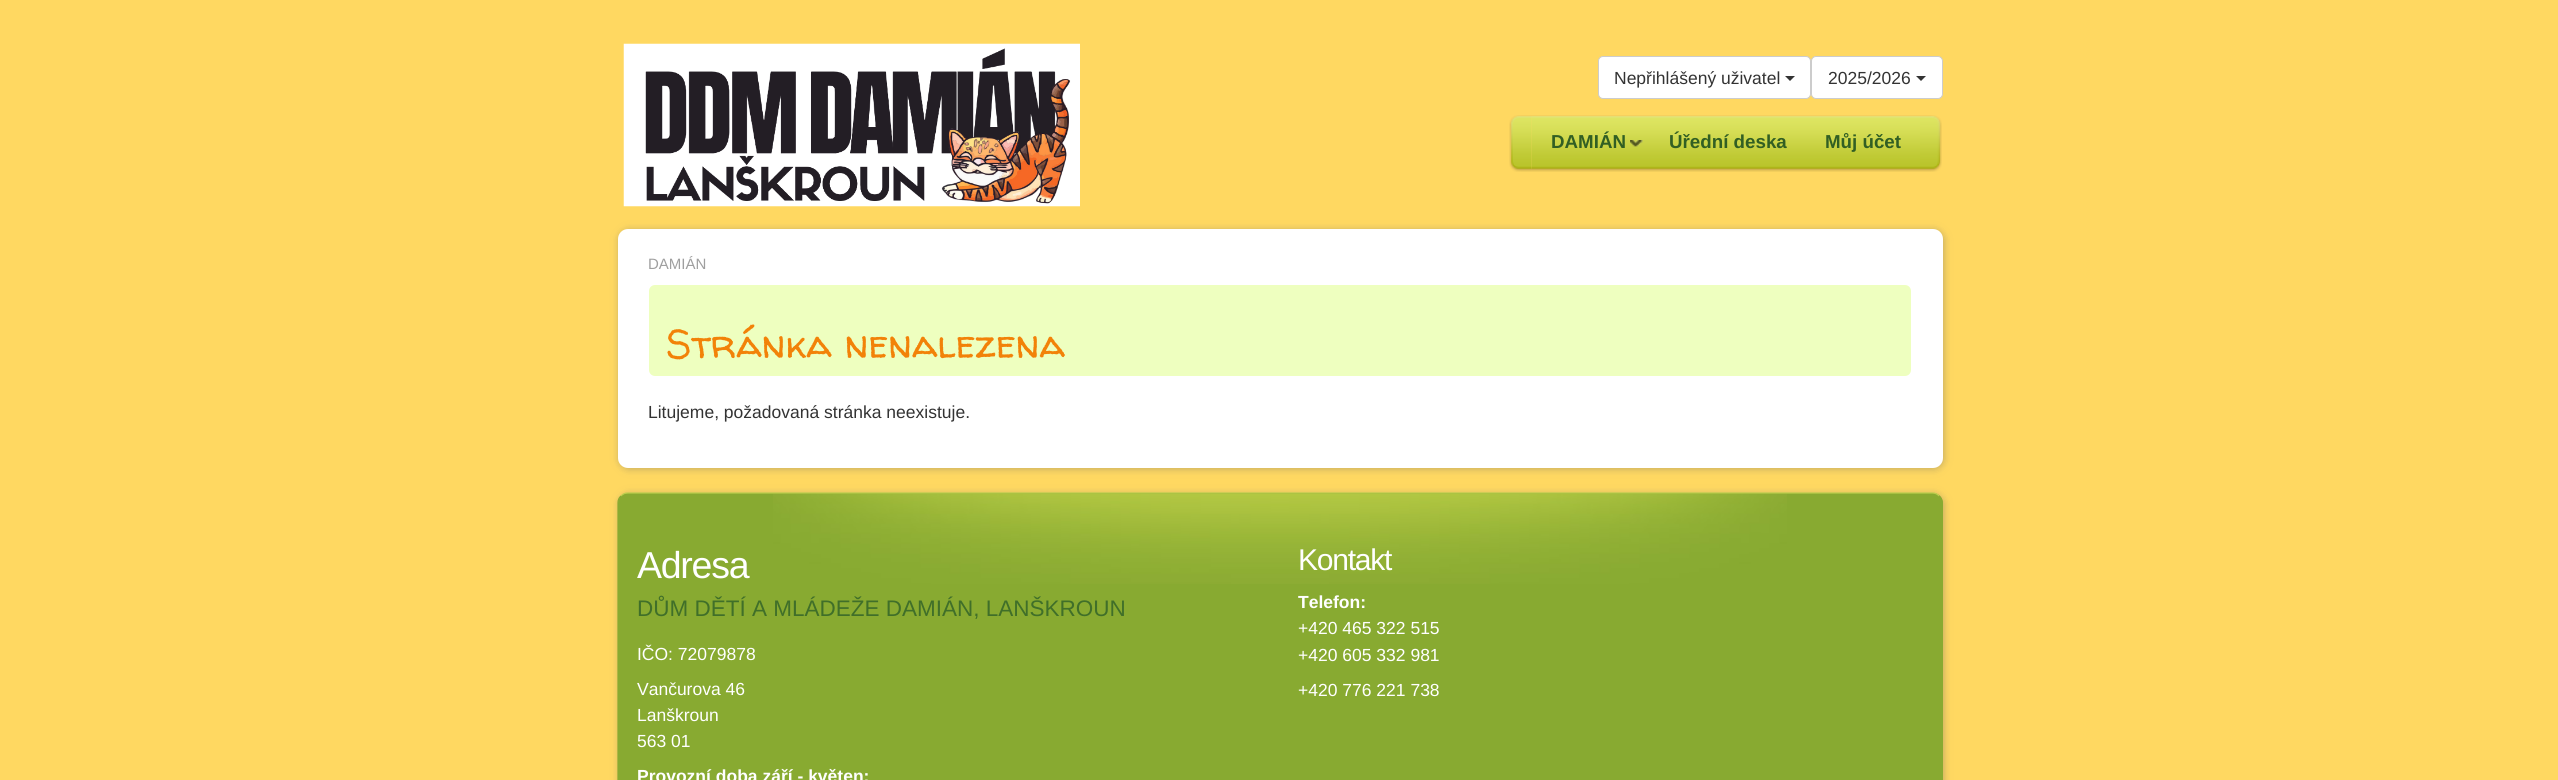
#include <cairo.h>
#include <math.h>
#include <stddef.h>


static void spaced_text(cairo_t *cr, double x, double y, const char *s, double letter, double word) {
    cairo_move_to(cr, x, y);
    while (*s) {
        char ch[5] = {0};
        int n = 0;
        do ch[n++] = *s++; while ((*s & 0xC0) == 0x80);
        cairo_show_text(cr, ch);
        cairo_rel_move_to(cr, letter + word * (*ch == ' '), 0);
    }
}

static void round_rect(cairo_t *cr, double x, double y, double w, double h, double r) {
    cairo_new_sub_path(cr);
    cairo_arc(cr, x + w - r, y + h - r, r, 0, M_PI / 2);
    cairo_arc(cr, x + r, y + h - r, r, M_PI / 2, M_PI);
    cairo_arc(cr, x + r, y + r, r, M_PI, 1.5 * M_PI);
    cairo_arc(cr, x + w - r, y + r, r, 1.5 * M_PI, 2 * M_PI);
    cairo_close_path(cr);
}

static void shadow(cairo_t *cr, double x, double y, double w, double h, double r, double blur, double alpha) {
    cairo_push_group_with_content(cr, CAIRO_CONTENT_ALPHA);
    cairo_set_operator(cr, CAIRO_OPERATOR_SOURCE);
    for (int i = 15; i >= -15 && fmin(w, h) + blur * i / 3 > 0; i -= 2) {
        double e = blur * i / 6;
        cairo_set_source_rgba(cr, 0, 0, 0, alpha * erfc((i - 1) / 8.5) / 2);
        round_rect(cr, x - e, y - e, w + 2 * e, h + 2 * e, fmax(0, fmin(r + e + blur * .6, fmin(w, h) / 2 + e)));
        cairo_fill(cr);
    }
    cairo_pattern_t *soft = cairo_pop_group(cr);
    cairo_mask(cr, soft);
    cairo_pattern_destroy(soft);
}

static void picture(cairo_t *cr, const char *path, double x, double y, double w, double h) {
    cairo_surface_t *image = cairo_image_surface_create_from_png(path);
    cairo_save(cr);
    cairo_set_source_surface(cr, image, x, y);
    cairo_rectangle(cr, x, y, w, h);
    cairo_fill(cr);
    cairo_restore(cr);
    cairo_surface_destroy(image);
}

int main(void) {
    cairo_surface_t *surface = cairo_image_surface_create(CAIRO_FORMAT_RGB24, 2558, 780);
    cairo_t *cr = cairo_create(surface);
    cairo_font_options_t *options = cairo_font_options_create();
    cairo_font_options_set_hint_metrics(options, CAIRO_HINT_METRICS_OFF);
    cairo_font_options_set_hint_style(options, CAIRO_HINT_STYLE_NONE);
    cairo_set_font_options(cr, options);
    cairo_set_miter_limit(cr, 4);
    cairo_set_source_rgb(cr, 1, 0.847, 0.38);
    cairo_paint(cr);
    picture(cr, "img1.png", 623, 43, 457, 164);
    cairo_set_source_rgb(cr, 1, 1, 1);
    round_rect(cr, 1598.5, 56.5, 212, 42, 4.5);
    cairo_fill_preserve(cr);
    cairo_set_source_rgb(cr, 0.8, 0.8, 0.8);
    cairo_set_line_width(cr, 1);
    cairo_stroke(cr);
    cairo_select_font_face(cr, "Liberation Sans", CAIRO_FONT_SLANT_NORMAL, CAIRO_FONT_WEIGHT_NORMAL);
    cairo_set_font_size(cr, 17.5);
    cairo_set_source_rgb(cr, 0.2, 0.2, 0.2);
    cairo_move_to(cr, 1614, 84);
    cairo_show_text(cr, "Nepřihlášený uživatel");
    cairo_new_path(cr);
    cairo_move_to(cr, 1785, 76);
    cairo_line_to(cr, 1795, 76);
    cairo_line_to(cr, 1790, 81);
    cairo_close_path(cr);
    cairo_fill(cr);
    cairo_set_source_rgb(cr, 1, 1, 1);
    round_rect(cr, 1811.5, 56.5, 131, 42, 4.5);
    cairo_fill_preserve(cr);
    cairo_set_source_rgb(cr, 0.8, 0.8, 0.8);
    cairo_stroke(cr);
    cairo_set_source_rgb(cr, 0.2, 0.2, 0.2);
    cairo_move_to(cr, 1828, 84);
    cairo_show_text(cr, "2025/2026");
    cairo_new_path(cr);
    cairo_move_to(cr, 1916, 76);
    cairo_line_to(cr, 1926, 76);
    cairo_line_to(cr, 1921, 81);
    cairo_close_path(cr);
    cairo_fill(cr);
    picture(cr, "img2.png", 1509, 115, 23, 57);
    picture(cr, "img3.png", 1531, 115, 389, 57);
    cairo_select_font_face(cr, "Liberation Sans", CAIRO_FONT_SLANT_NORMAL, CAIRO_FONT_WEIGHT_BOLD);
    cairo_set_font_size(cr, 18.75);
    cairo_set_source_rgb(cr, 0.196, 0.373, 0.137);
    cairo_move_to(cr, 1551, 148);
    cairo_show_text(cr, "DAMIÁN");
    picture(cr, "img4.png", 1630, 140, 13, 7);
    cairo_move_to(cr, 1669, 148);
    cairo_show_text(cr, "Úřední deska");
    cairo_move_to(cr, 1825, 148);
    cairo_show_text(cr, "Můj účet");
    picture(cr, "img5.png", 1920, 115, 22, 57);
    cairo_set_source_rgb(cr, 0.4, 0.4, 0.4);
    shadow(cr, 619, 230, 1325, 239, 10, 4, 0.4);
    cairo_set_source_rgb(cr, 1, 1, 1);
    round_rect(cr, 618, 229, 1325, 239, 10);
    cairo_fill(cr);
    cairo_select_font_face(cr, "Liberation Sans", CAIRO_FONT_SLANT_NORMAL, CAIRO_FONT_WEIGHT_NORMAL);
    cairo_set_font_size(cr, 15);
    cairo_set_source_rgb(cr, 0.624, 0.624, 0.624);
    cairo_move_to(cr, 648, 269);
    cairo_show_text(cr, "DAMIÁN");
    cairo_set_source_rgb(cr, 0.933, 1, 0.749);
    round_rect(cr, 649, 285, 1262, 91, 6);
    cairo_fill(cr);
    cairo_select_font_face(cr, "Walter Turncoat", CAIRO_FONT_SLANT_NORMAL, CAIRO_FONT_WEIGHT_NORMAL);
    cairo_set_font_size(cr, 40);
    cairo_set_source_rgb(cr, 0.949, 0.51, 0.035);
    cairo_move_to(cr, 666, 358);
    cairo_show_text(cr, "Stránka nenalezena");
    cairo_select_font_face(cr, "Liberation Sans", CAIRO_FONT_SLANT_NORMAL, CAIRO_FONT_WEIGHT_NORMAL);
    cairo_set_font_size(cr, 17.5);
    cairo_set_source_rgb(cr, 0.2, 0.2, 0.2);
    cairo_move_to(cr, 648, 418);
    cairo_show_text(cr, "Litujeme, požadovaná stránka neexistuje.");
    cairo_set_source_rgb(cr, 0.4, 0.4, 0.4);
    shadow(cr, 619, 494, 1325, 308, 10, 4, 0.4);
    cairo_set_source_rgb(cr, 0.533, 0.667, 0.192);
    cairo_new_path(cr);
    cairo_move_to(cr, 628, 493);
    cairo_line_to(cr, 1933, 493);
    cairo_curve_to(cr, 1938.5, 493, 1943, 497.5, 1943, 503);
    cairo_line_to(cr, 1943, 780);
    cairo_line_to(cr, 618, 780);
    cairo_line_to(cr, 618, 503);
    cairo_curve_to(cr, 618, 497.5, 622.5, 493, 628, 493);
    cairo_close_path(cr);
    cairo_fill(cr);
    picture(cr, "img6.png", 773, 493, 1014, 91);
    cairo_new_path(cr);
    cairo_move_to(cr, 621, 496);
    cairo_curve_to(cr, 622.5, 494, 625, 493, 627.5, 493);
    cairo_line_to(cr, 1932.5, 493);
    cairo_curve_to(cr, 1935, 493, 1937.5, 494, 1939, 496);
    cairo_set_source_rgb(cr, 0.737, 0.812, 0.302);
    cairo_set_line_width(cr, 1.2);
    cairo_stroke(cr);
    cairo_new_path(cr);
    cairo_move_to(cr, 1939, 496);
    cairo_curve_to(cr, 1941, 497.5, 1942, 500, 1942, 502.5);
    cairo_line_to(cr, 1942, 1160);
    cairo_curve_to(cr, 1942, 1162.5, 1941, 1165, 1939, 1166.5);
    cairo_set_source_rgb(cr, 0.533, 0.667, 0.192);
    cairo_stroke(cr);
    cairo_new_path(cr);
    cairo_move_to(cr, 621, 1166.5);
    cairo_curve_to(cr, 619, 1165, 618, 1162.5, 618, 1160);
    cairo_line_to(cr, 618, 502.5);
    cairo_curve_to(cr, 618, 500, 619, 497.5, 621, 496);
    cairo_stroke(cr);
    cairo_set_font_size(cr, 37.5);
    cairo_set_source_rgb(cr, 1, 1, 1);
    spaced_text(cr, 637, 578, "Adresa", -1.25, 0);
    cairo_set_font_size(cr, 22.5);
    cairo_set_source_rgb(cr, 0.251, 0.435, 0.161);
    cairo_move_to(cr, 637, 616);
    cairo_show_text(cr, "DŮM DĚTÍ A MLÁDEŽE DAMIÁN, LANŠKROUN");
    cairo_set_font_size(cr, 17.5);
    cairo_set_source_rgb(cr, 1, 1, 1);
    cairo_move_to(cr, 637, 660);
    cairo_show_text(cr, "IČO: 72079878");
    cairo_move_to(cr, 637, 695);
    cairo_show_text(cr, "Vančurova 46");
    cairo_move_to(cr, 637, 721);
    cairo_show_text(cr, "Lanškroun");
    cairo_move_to(cr, 637, 747);
    cairo_show_text(cr, "563 01");
    cairo_select_font_face(cr, "Liberation Sans", CAIRO_FONT_SLANT_NORMAL, CAIRO_FONT_WEIGHT_BOLD);
    cairo_move_to(cr, 637, 782);
    cairo_show_text(cr, "Provozní doba září - květen:");
    cairo_select_font_face(cr, "Liberation Sans", CAIRO_FONT_SLANT_NORMAL, CAIRO_FONT_WEIGHT_NORMAL);
    cairo_set_font_size(cr, 30);
    spaced_text(cr, 1298, 570, "Kontakt", -1.25, 0);
    cairo_select_font_face(cr, "Liberation Sans", CAIRO_FONT_SLANT_NORMAL, CAIRO_FONT_WEIGHT_BOLD);
    cairo_set_font_size(cr, 17.5);
    cairo_move_to(cr, 1298, 608);
    cairo_show_text(cr, "Telefon:");
    cairo_select_font_face(cr, "Liberation Sans", CAIRO_FONT_SLANT_NORMAL, CAIRO_FONT_WEIGHT_NORMAL);
    cairo_move_to(cr, 1298, 634);
    cairo_show_text(cr, "+420 465 322 515");
    cairo_move_to(cr, 1298, 661);
    cairo_show_text(cr, "+420 605 332 981");
    cairo_move_to(cr, 1298, 696);
    cairo_show_text(cr, "+420 776 221 738");
    cairo_surface_write_to_png(surface, "page.png");
    cairo_font_options_destroy(options);
    cairo_destroy(cr);
    cairo_surface_destroy(surface);
    return 0;
}
